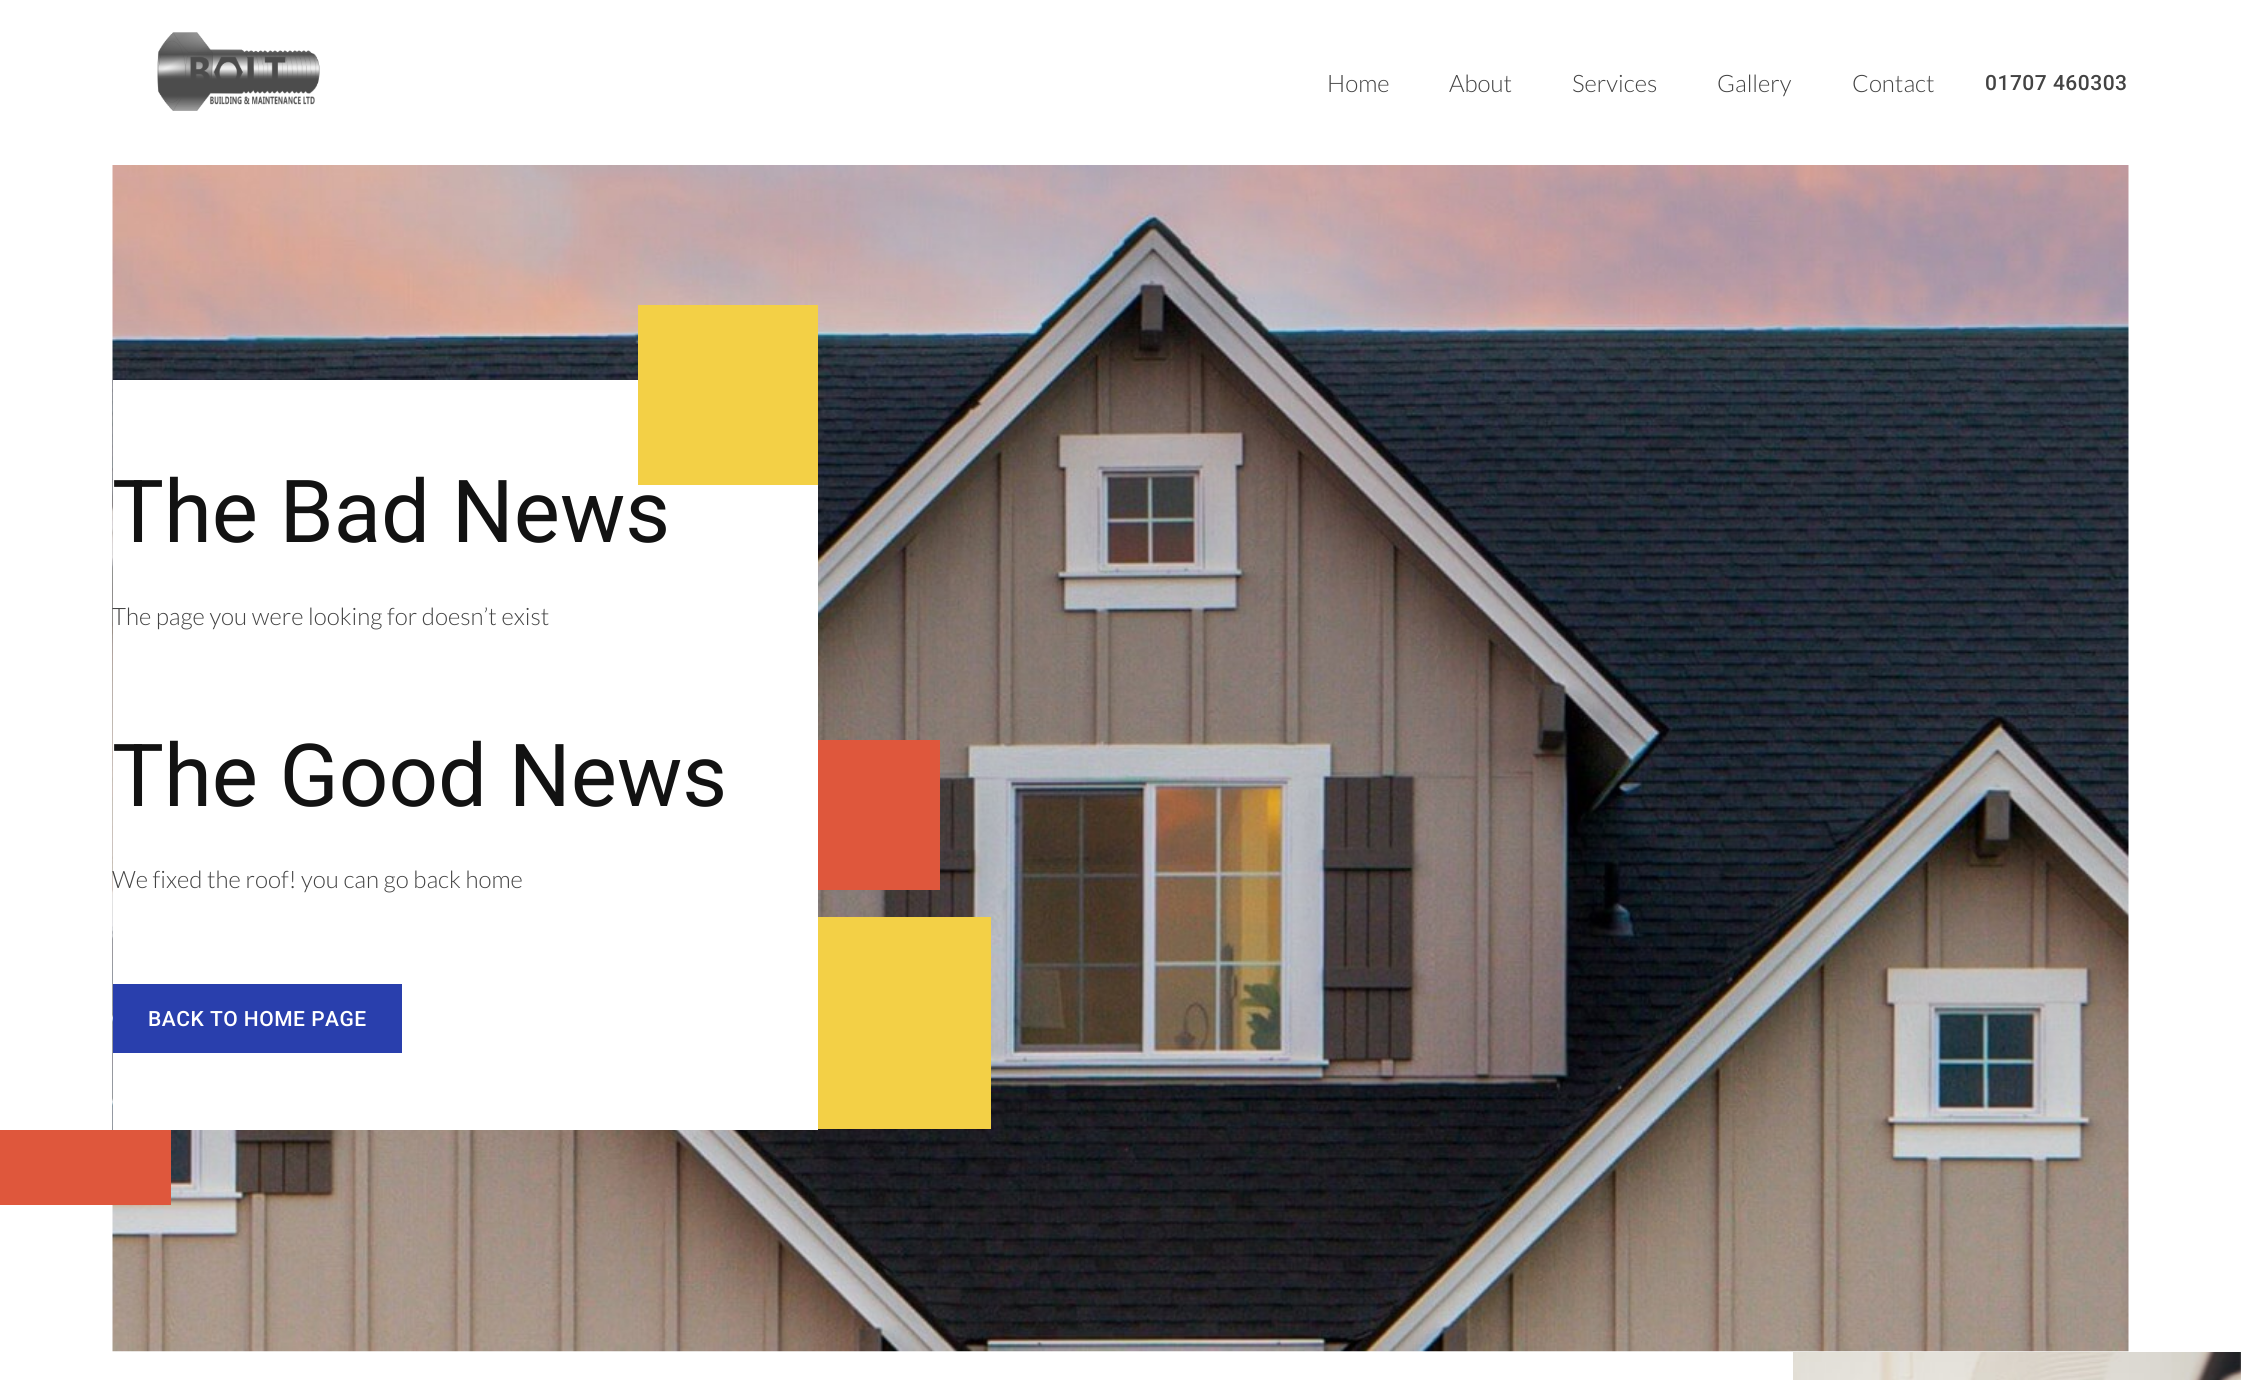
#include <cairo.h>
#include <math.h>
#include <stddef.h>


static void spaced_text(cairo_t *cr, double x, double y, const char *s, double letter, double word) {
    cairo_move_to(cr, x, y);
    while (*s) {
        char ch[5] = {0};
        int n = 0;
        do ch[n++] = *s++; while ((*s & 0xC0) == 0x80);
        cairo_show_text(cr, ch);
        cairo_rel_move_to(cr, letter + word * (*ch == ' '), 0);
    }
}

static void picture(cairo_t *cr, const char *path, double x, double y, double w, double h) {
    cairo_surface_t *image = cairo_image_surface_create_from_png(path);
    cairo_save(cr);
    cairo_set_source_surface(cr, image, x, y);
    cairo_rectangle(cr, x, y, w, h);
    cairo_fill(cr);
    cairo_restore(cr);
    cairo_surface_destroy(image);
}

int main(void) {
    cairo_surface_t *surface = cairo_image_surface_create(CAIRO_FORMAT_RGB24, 2241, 1380);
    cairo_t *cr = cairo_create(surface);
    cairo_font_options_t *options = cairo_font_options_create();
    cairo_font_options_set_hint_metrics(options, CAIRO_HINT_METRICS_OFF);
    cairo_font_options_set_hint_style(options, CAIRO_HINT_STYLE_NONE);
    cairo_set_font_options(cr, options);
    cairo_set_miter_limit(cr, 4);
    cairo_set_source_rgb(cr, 1, 1, 1);
    cairo_paint(cr);
    picture(cr, "img1.png", 157, 32, 163, 79);
    cairo_select_font_face(cr, "Lato Light", CAIRO_FONT_SLANT_NORMAL, CAIRO_FONT_WEIGHT_NORMAL);
    cairo_set_font_size(cr, 24);
    cairo_set_source_rgb(cr, 0.263, 0.263, 0.263);
    cairo_move_to(cr, 1327, 92);
    cairo_show_text(cr, "Home");
    cairo_move_to(cr, 1449, 92);
    cairo_show_text(cr, "About");
    cairo_move_to(cr, 1572, 92);
    cairo_show_text(cr, "Services");
    cairo_move_to(cr, 1717, 92);
    cairo_show_text(cr, "Gallery");
    cairo_move_to(cr, 1852, 92);
    cairo_show_text(cr, "Contact");
    cairo_select_font_face(cr, "Roboto Medium", CAIRO_FONT_SLANT_NORMAL, CAIRO_FONT_WEIGHT_NORMAL);
    cairo_set_font_size(cr, 21);
    spaced_text(cr, 1985, 90, "01707 460303", 0.5, 0);
    picture(cr, "img2.png", 112, 165, 2017, 1187);
    cairo_set_source_rgb(cr, 1, 1, 1);
    cairo_rectangle(cr, 113, 380, 705, 750);
    cairo_fill(cr);
    cairo_select_font_face(cr, "Roboto", CAIRO_FONT_SLANT_NORMAL, CAIRO_FONT_WEIGHT_NORMAL);
    cairo_set_font_size(cr, 87);
    cairo_set_source_rgb(cr, 0.071, 0.071, 0.071);
    cairo_move_to(cr, 112, 542);
    cairo_show_text(cr, "The Bad News");
    cairo_set_source_rgb(cr, 0.953, 0.816, 0.275);
    cairo_rectangle(cr, 638, 305, 180, 180);
    cairo_fill(cr);
    cairo_select_font_face(cr, "Lato Light", CAIRO_FONT_SLANT_NORMAL, CAIRO_FONT_WEIGHT_NORMAL);
    cairo_set_font_size(cr, 24);
    cairo_set_source_rgb(cr, 0.263, 0.263, 0.263);
    cairo_move_to(cr, 112, 625);
    cairo_show_text(cr, "The page you were looking for doesn’t exist");
    cairo_select_font_face(cr, "Roboto", CAIRO_FONT_SLANT_NORMAL, CAIRO_FONT_WEIGHT_NORMAL);
    cairo_set_font_size(cr, 87);
    cairo_set_source_rgb(cr, 0.071, 0.071, 0.071);
    cairo_move_to(cr, 112, 806);
    cairo_show_text(cr, "The Good News");
    cairo_select_font_face(cr, "Lato Light", CAIRO_FONT_SLANT_NORMAL, CAIRO_FONT_WEIGHT_NORMAL);
    cairo_set_font_size(cr, 24);
    cairo_set_source_rgb(cr, 0.263, 0.263, 0.263);
    cairo_move_to(cr, 112, 888);
    cairo_show_text(cr, "We fixed the roof! you can go back home");
    cairo_set_source_rgb(cr, 0.161, 0.247, 0.678);
    cairo_rectangle(cr, 113, 984, 289, 69);
    cairo_fill(cr);
    cairo_select_font_face(cr, "Roboto Medium", CAIRO_FONT_SLANT_NORMAL, CAIRO_FONT_WEIGHT_NORMAL);
    cairo_set_font_size(cr, 21);
    cairo_set_source_rgb(cr, 1, 1, 1);
    spaced_text(cr, 148, 1026, "BACK TO HOME PAGE", 0.5, 0);
    cairo_set_source_rgb(cr, 0.875, 0.341, 0.235);
    cairo_rectangle(cr, 818, 740, 122, 150);
    cairo_fill(cr);
    cairo_set_source_rgb(cr, 0.953, 0.816, 0.275);
    cairo_rectangle(cr, 818, 917, 173, 212);
    cairo_fill(cr);
    cairo_set_source_rgb(cr, 0.875, 0.341, 0.235);
    cairo_rectangle(cr, 0, 1130, 171, 75);
    cairo_fill(cr);
    picture(cr, "img4.png", 2239, 1352, 2, 28);
    picture(cr, "img3.png", 1793, 1352, 448, 28);
    cairo_surface_write_to_png(surface, "page.png");
    cairo_font_options_destroy(options);
    cairo_destroy(cr);
    cairo_surface_destroy(surface);
    return 0;
}
